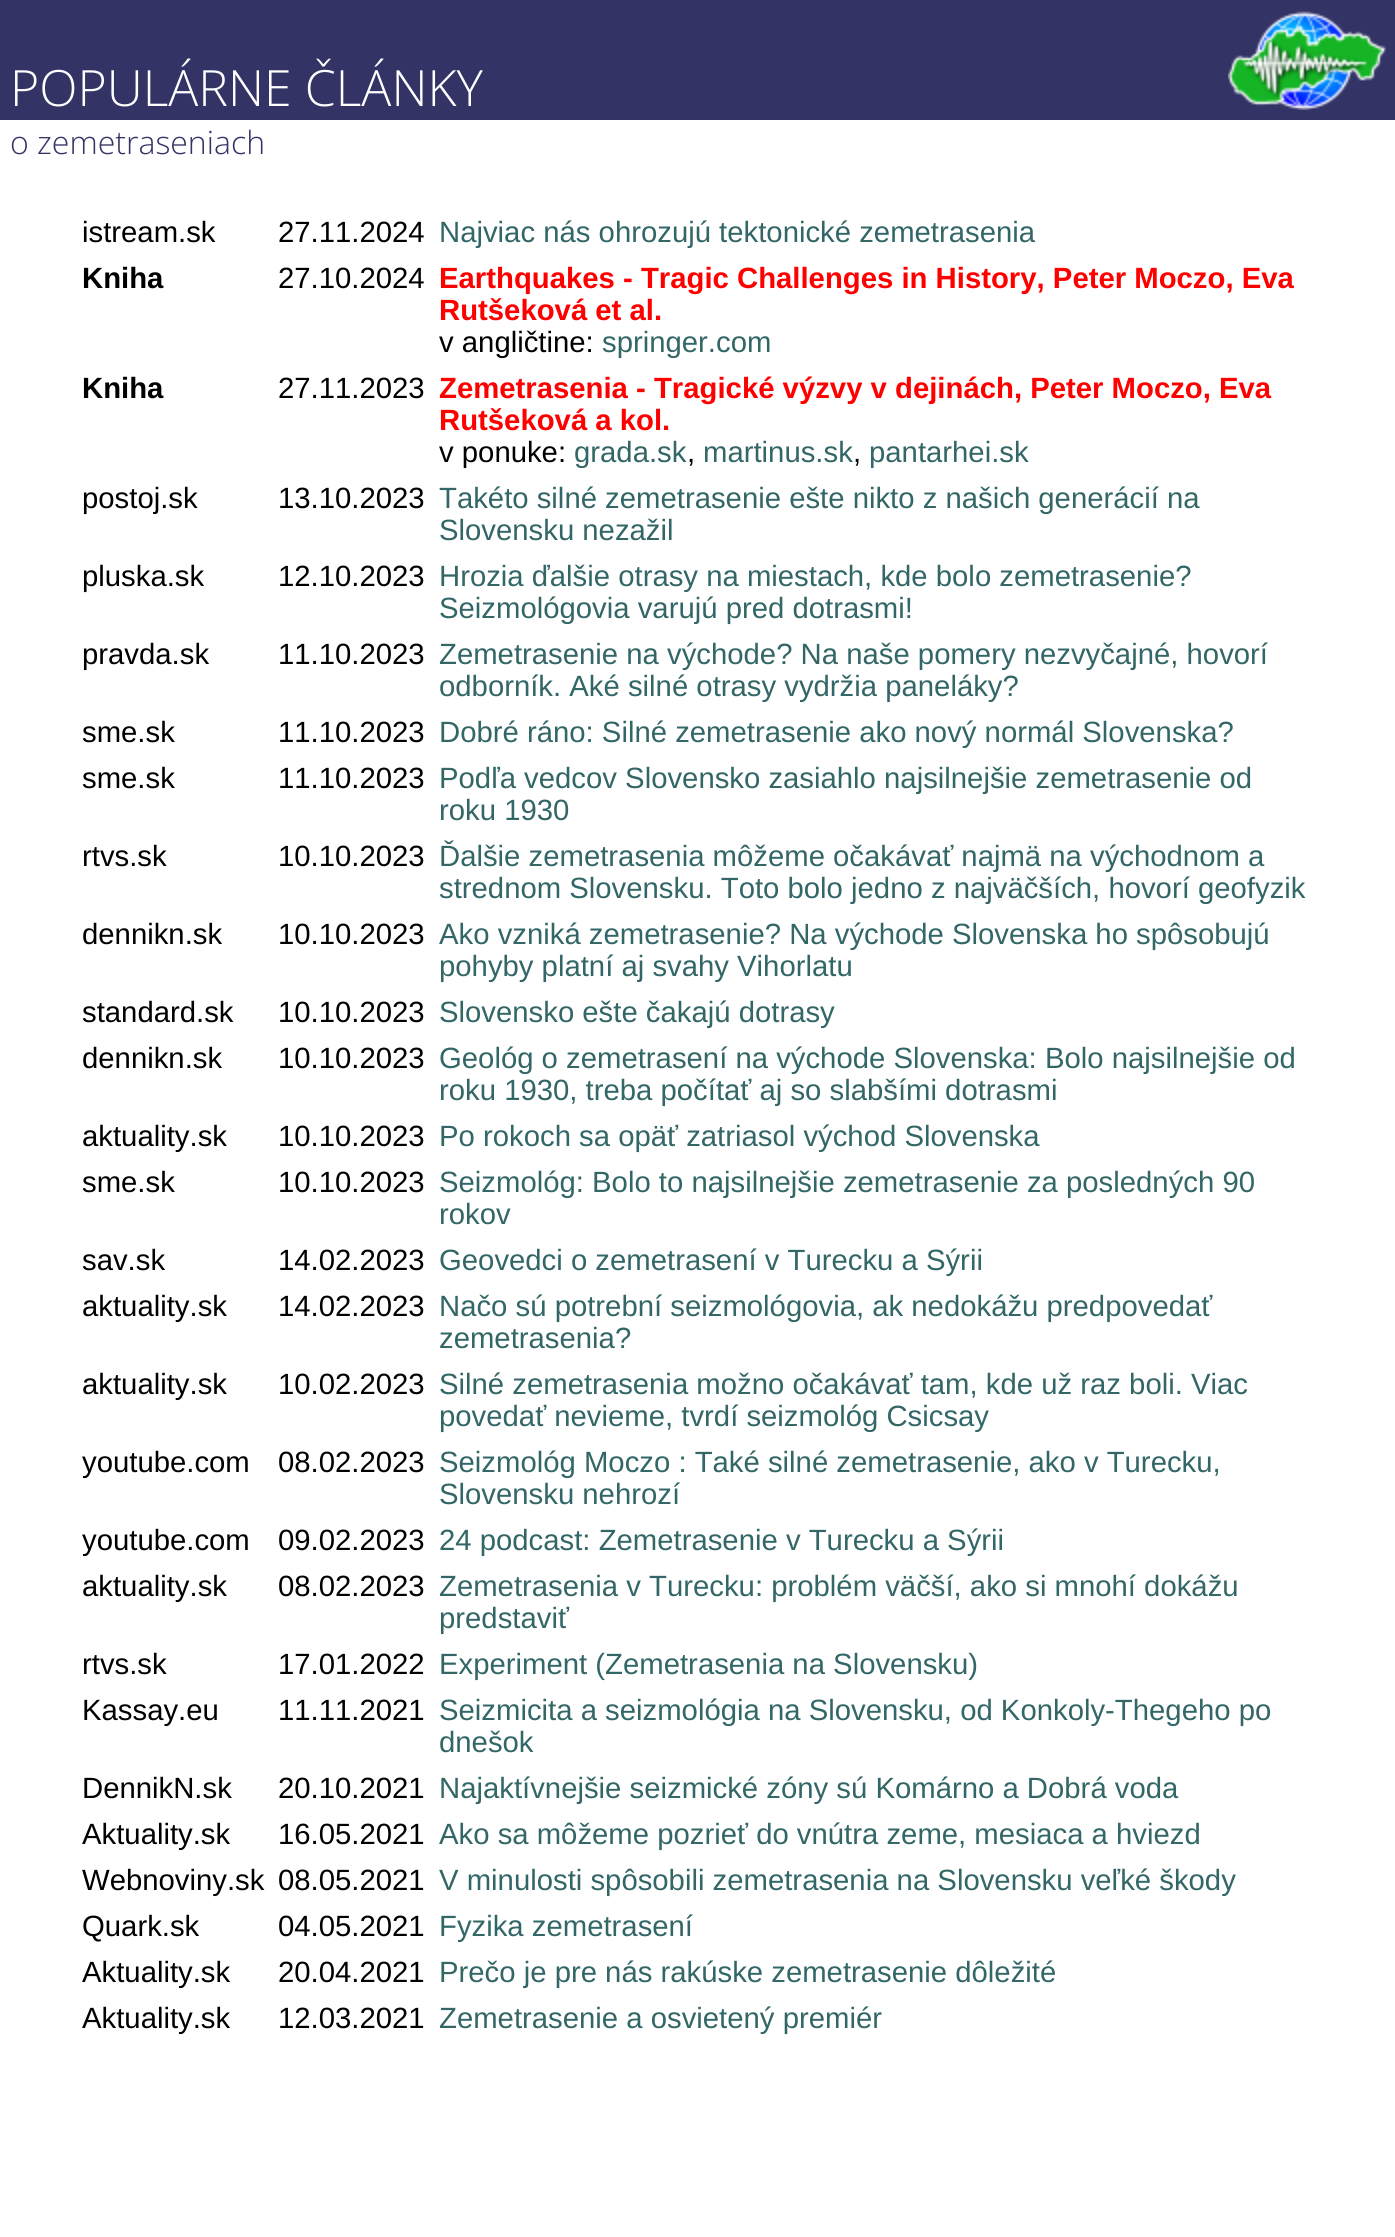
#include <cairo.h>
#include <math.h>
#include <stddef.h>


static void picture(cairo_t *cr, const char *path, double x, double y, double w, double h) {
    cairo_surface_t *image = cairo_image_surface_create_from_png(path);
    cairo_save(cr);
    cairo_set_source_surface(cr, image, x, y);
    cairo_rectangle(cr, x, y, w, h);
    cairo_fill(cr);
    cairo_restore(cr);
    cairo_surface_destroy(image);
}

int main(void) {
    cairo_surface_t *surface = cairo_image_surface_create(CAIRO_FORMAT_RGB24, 1395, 2237);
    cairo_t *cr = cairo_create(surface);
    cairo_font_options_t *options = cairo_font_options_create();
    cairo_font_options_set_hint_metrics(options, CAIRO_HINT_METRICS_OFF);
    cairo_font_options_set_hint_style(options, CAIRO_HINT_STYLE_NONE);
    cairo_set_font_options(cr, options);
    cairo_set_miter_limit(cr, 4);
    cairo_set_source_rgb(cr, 1, 1, 1);
    cairo_paint(cr);
    cairo_set_source_rgb(cr, 0.2, 0.2, 0.4);
    cairo_rectangle(cr, 0, 0, 1395, 120);
    cairo_fill(cr);
    cairo_select_font_face(cr, "Open Sans Light", CAIRO_FONT_SLANT_NORMAL, CAIRO_FONT_WEIGHT_NORMAL);
    cairo_set_font_size(cr, 50);
    cairo_set_source_rgb(cr, 1, 1, 1);
    cairo_move_to(cr, 10, 106);
    cairo_show_text(cr, "POPULÁRNE ČLÁNKY");
    picture(cr, "img1.png", 1228, 11, 158, 99);
    cairo_set_font_size(cr, 32);
    cairo_set_source_rgb(cr, 0.2, 0.2, 0.4);
    cairo_move_to(cr, 10, 154);
    cairo_show_text(cr, "o zemetraseniach");
    cairo_select_font_face(cr, "Liberation Sans", CAIRO_FONT_SLANT_NORMAL, CAIRO_FONT_WEIGHT_NORMAL);
    cairo_set_font_size(cr, 29.3);
    cairo_set_source_rgb(cr, 0, 0, 0);
    cairo_move_to(cr, 82, 242);
    cairo_show_text(cr, "istream.sk");
    cairo_move_to(cr, 278, 242);
    cairo_show_text(cr, "27.11.2024");
    cairo_set_source_rgb(cr, 0.2, 0.4, 0.4);
    cairo_move_to(cr, 439, 242);
    cairo_show_text(cr, "Najviac nás ohrozujú tektonické zemetrasenia");
    cairo_select_font_face(cr, "Liberation Sans", CAIRO_FONT_SLANT_NORMAL, CAIRO_FONT_WEIGHT_BOLD);
    cairo_set_source_rgb(cr, 0, 0, 0);
    cairo_move_to(cr, 82, 288);
    cairo_show_text(cr, "Kniha");
    cairo_select_font_face(cr, "Liberation Sans", CAIRO_FONT_SLANT_NORMAL, CAIRO_FONT_WEIGHT_NORMAL);
    cairo_move_to(cr, 278, 288);
    cairo_show_text(cr, "27.10.2024");
    cairo_select_font_face(cr, "Liberation Sans", CAIRO_FONT_SLANT_NORMAL, CAIRO_FONT_WEIGHT_BOLD);
    cairo_set_source_rgb(cr, 1, 0, 0);
    cairo_move_to(cr, 439, 288);
    cairo_show_text(cr, "Earthquakes - Tragic Challenges in History, Peter Moczo, Eva");
    cairo_move_to(cr, 439, 320);
    cairo_show_text(cr, "Rutšeková et al.");
    cairo_select_font_face(cr, "Liberation Sans", CAIRO_FONT_SLANT_NORMAL, CAIRO_FONT_WEIGHT_NORMAL);
    cairo_set_source_rgb(cr, 0, 0, 0);
    cairo_move_to(cr, 439, 352);
    cairo_show_text(cr, "v angličtine:");
    cairo_set_source_rgb(cr, 0.2, 0.4, 0.4);
    cairo_move_to(cr, 602, 352);
    cairo_show_text(cr, "springer.com");
    cairo_select_font_face(cr, "Liberation Sans", CAIRO_FONT_SLANT_NORMAL, CAIRO_FONT_WEIGHT_BOLD);
    cairo_set_source_rgb(cr, 0, 0, 0);
    cairo_move_to(cr, 82, 398);
    cairo_show_text(cr, "Kniha");
    cairo_select_font_face(cr, "Liberation Sans", CAIRO_FONT_SLANT_NORMAL, CAIRO_FONT_WEIGHT_NORMAL);
    cairo_move_to(cr, 278, 398);
    cairo_show_text(cr, "27.11.2023");
    cairo_select_font_face(cr, "Liberation Sans", CAIRO_FONT_SLANT_NORMAL, CAIRO_FONT_WEIGHT_BOLD);
    cairo_set_source_rgb(cr, 1, 0, 0);
    cairo_move_to(cr, 439, 398);
    cairo_show_text(cr, "Zemetrasenia - Tragické výzvy v dejinách, Peter Moczo, Eva");
    cairo_move_to(cr, 439, 430);
    cairo_show_text(cr, "Rutšeková a kol.");
    cairo_select_font_face(cr, "Liberation Sans", CAIRO_FONT_SLANT_NORMAL, CAIRO_FONT_WEIGHT_NORMAL);
    cairo_set_source_rgb(cr, 0, 0, 0);
    cairo_move_to(cr, 439, 462);
    cairo_show_text(cr, "v ponuke:");
    cairo_set_source_rgb(cr, 0.2, 0.4, 0.4);
    cairo_move_to(cr, 574, 462);
    cairo_show_text(cr, "grada.sk");
    cairo_set_source_rgb(cr, 0, 0, 0);
    cairo_move_to(cr, 687, 462);
    cairo_show_text(cr, ",");
    cairo_set_source_rgb(cr, 0.2, 0.4, 0.4);
    cairo_move_to(cr, 703, 462);
    cairo_show_text(cr, "martinus.sk");
    cairo_set_source_rgb(cr, 0, 0, 0);
    cairo_move_to(cr, 853, 462);
    cairo_show_text(cr, ",");
    cairo_set_source_rgb(cr, 0.2, 0.4, 0.4);
    cairo_move_to(cr, 869, 462);
    cairo_show_text(cr, "pantarhei.sk");
    cairo_set_source_rgb(cr, 0, 0, 0);
    cairo_move_to(cr, 82, 508);
    cairo_show_text(cr, "postoj.sk");
    cairo_move_to(cr, 278, 508);
    cairo_show_text(cr, "13.10.2023");
    cairo_set_source_rgb(cr, 0.2, 0.4, 0.4);
    cairo_move_to(cr, 439, 508);
    cairo_show_text(cr, "Takéto silné zemetrasenie ešte nikto z našich generácií na");
    cairo_move_to(cr, 439, 540);
    cairo_show_text(cr, "Slovensku nezažil");
    cairo_set_source_rgb(cr, 0, 0, 0);
    cairo_move_to(cr, 82, 586);
    cairo_show_text(cr, "pluska.sk");
    cairo_move_to(cr, 278, 586);
    cairo_show_text(cr, "12.10.2023");
    cairo_set_source_rgb(cr, 0.2, 0.4, 0.4);
    cairo_move_to(cr, 439, 586);
    cairo_show_text(cr, "Hrozia ďalšie otrasy na miestach, kde bolo zemetrasenie?");
    cairo_move_to(cr, 439, 618);
    cairo_show_text(cr, "Seizmológovia varujú pred dotrasmi!");
    cairo_set_source_rgb(cr, 0, 0, 0);
    cairo_move_to(cr, 82, 664);
    cairo_show_text(cr, "pravda.sk");
    cairo_move_to(cr, 278, 664);
    cairo_show_text(cr, "11.10.2023");
    cairo_set_source_rgb(cr, 0.2, 0.4, 0.4);
    cairo_move_to(cr, 439, 664);
    cairo_show_text(cr, "Zemetrasenie na východe? Na naše pomery nezvyčajné, hovorí");
    cairo_move_to(cr, 439, 696);
    cairo_show_text(cr, "odborník. Aké silné otrasy vydržia paneláky?");
    cairo_set_source_rgb(cr, 0, 0, 0);
    cairo_move_to(cr, 82, 742);
    cairo_show_text(cr, "sme.sk");
    cairo_move_to(cr, 278, 742);
    cairo_show_text(cr, "11.10.2023");
    cairo_set_source_rgb(cr, 0.2, 0.4, 0.4);
    cairo_move_to(cr, 439, 742);
    cairo_show_text(cr, "Dobré ráno: Silné zemetrasenie ako nový normál Slovenska?");
    cairo_set_source_rgb(cr, 0, 0, 0);
    cairo_move_to(cr, 82, 788);
    cairo_show_text(cr, "sme.sk");
    cairo_move_to(cr, 278, 788);
    cairo_show_text(cr, "11.10.2023");
    cairo_set_source_rgb(cr, 0.2, 0.4, 0.4);
    cairo_move_to(cr, 439, 788);
    cairo_show_text(cr, "Podľa vedcov Slovensko zasiahlo najsilnejšie zemetrasenie od");
    cairo_move_to(cr, 439, 820);
    cairo_show_text(cr, "roku 1930");
    cairo_set_source_rgb(cr, 0, 0, 0);
    cairo_move_to(cr, 82, 866);
    cairo_show_text(cr, "rtvs.sk");
    cairo_move_to(cr, 278, 866);
    cairo_show_text(cr, "10.10.2023");
    cairo_set_source_rgb(cr, 0.2, 0.4, 0.4);
    cairo_move_to(cr, 439, 866);
    cairo_show_text(cr, "Ďalšie zemetrasenia môžeme očakávať najmä na východnom a");
    cairo_move_to(cr, 439, 898);
    cairo_show_text(cr, "strednom Slovensku. Toto bolo jedno z najväčších, hovorí geofyzik");
    cairo_set_source_rgb(cr, 0, 0, 0);
    cairo_move_to(cr, 82, 944);
    cairo_show_text(cr, "dennikn.sk");
    cairo_move_to(cr, 278, 944);
    cairo_show_text(cr, "10.10.2023");
    cairo_set_source_rgb(cr, 0.2, 0.4, 0.4);
    cairo_move_to(cr, 439, 944);
    cairo_show_text(cr, "Ako vzniká zemetrasenie? Na východe Slovenska ho spôsobujú");
    cairo_move_to(cr, 439, 976);
    cairo_show_text(cr, "pohyby platní aj svahy Vihorlatu");
    cairo_set_source_rgb(cr, 0, 0, 0);
    cairo_move_to(cr, 82, 1022);
    cairo_show_text(cr, "standard.sk");
    cairo_move_to(cr, 278, 1022);
    cairo_show_text(cr, "10.10.2023");
    cairo_set_source_rgb(cr, 0.2, 0.4, 0.4);
    cairo_move_to(cr, 439, 1022);
    cairo_show_text(cr, "Slovensko ešte čakajú dotrasy");
    cairo_set_source_rgb(cr, 0, 0, 0);
    cairo_move_to(cr, 82, 1068);
    cairo_show_text(cr, "dennikn.sk");
    cairo_move_to(cr, 278, 1068);
    cairo_show_text(cr, "10.10.2023");
    cairo_set_source_rgb(cr, 0.2, 0.4, 0.4);
    cairo_move_to(cr, 439, 1068);
    cairo_show_text(cr, "Geológ o zemetrasení na východe Slovenska: Bolo najsilnejšie od");
    cairo_move_to(cr, 439, 1100);
    cairo_show_text(cr, "roku 1930, treba počítať aj so slabšími dotrasmi");
    cairo_set_source_rgb(cr, 0, 0, 0);
    cairo_move_to(cr, 82, 1146);
    cairo_show_text(cr, "aktuality.sk");
    cairo_move_to(cr, 278, 1146);
    cairo_show_text(cr, "10.10.2023");
    cairo_set_source_rgb(cr, 0.2, 0.4, 0.4);
    cairo_move_to(cr, 439, 1146);
    cairo_show_text(cr, "Po rokoch sa opäť zatriasol východ Slovenska");
    cairo_set_source_rgb(cr, 0, 0, 0);
    cairo_move_to(cr, 82, 1192);
    cairo_show_text(cr, "sme.sk");
    cairo_move_to(cr, 278, 1192);
    cairo_show_text(cr, "10.10.2023");
    cairo_set_source_rgb(cr, 0.2, 0.4, 0.4);
    cairo_move_to(cr, 439, 1192);
    cairo_show_text(cr, "Seizmológ: Bolo to najsilnejšie zemetrasenie za posledných 90");
    cairo_move_to(cr, 439, 1224);
    cairo_show_text(cr, "rokov");
    cairo_set_source_rgb(cr, 0, 0, 0);
    cairo_move_to(cr, 82, 1270);
    cairo_show_text(cr, "sav.sk");
    cairo_move_to(cr, 278, 1270);
    cairo_show_text(cr, "14.02.2023");
    cairo_set_source_rgb(cr, 0.2, 0.4, 0.4);
    cairo_move_to(cr, 439, 1270);
    cairo_show_text(cr, "Geovedci o zemetrasení v Turecku a Sýrii");
    cairo_set_source_rgb(cr, 0, 0, 0);
    cairo_move_to(cr, 82, 1316);
    cairo_show_text(cr, "aktuality.sk");
    cairo_move_to(cr, 278, 1316);
    cairo_show_text(cr, "14.02.2023");
    cairo_set_source_rgb(cr, 0.2, 0.4, 0.4);
    cairo_move_to(cr, 439, 1316);
    cairo_show_text(cr, "Načo sú potrební seizmológovia, ak nedokážu predpovedať");
    cairo_move_to(cr, 439, 1348);
    cairo_show_text(cr, "zemetrasenia?");
    cairo_set_source_rgb(cr, 0, 0, 0);
    cairo_move_to(cr, 82, 1394);
    cairo_show_text(cr, "aktuality.sk");
    cairo_move_to(cr, 278, 1394);
    cairo_show_text(cr, "10.02.2023");
    cairo_set_source_rgb(cr, 0.2, 0.4, 0.4);
    cairo_move_to(cr, 439, 1394);
    cairo_show_text(cr, "Silné zemetrasenia možno očakávať tam, kde už raz boli. Viac");
    cairo_move_to(cr, 439, 1426);
    cairo_show_text(cr, "povedať nevieme, tvrdí seizmológ Csicsay");
    cairo_set_source_rgb(cr, 0, 0, 0);
    cairo_move_to(cr, 82, 1472);
    cairo_show_text(cr, "youtube.com");
    cairo_move_to(cr, 278, 1472);
    cairo_show_text(cr, "08.02.2023");
    cairo_set_source_rgb(cr, 0.2, 0.4, 0.4);
    cairo_move_to(cr, 439, 1472);
    cairo_show_text(cr, "Seizmológ Moczo : Také silné zemetrasenie, ako v Turecku,");
    cairo_move_to(cr, 439, 1504);
    cairo_show_text(cr, "Slovensku nehrozí");
    cairo_set_source_rgb(cr, 0, 0, 0);
    cairo_move_to(cr, 82, 1550);
    cairo_show_text(cr, "youtube.com");
    cairo_move_to(cr, 278, 1550);
    cairo_show_text(cr, "09.02.2023");
    cairo_set_source_rgb(cr, 0.2, 0.4, 0.4);
    cairo_move_to(cr, 439, 1550);
    cairo_show_text(cr, "24 podcast: Zemetrasenie v Turecku a Sýrii");
    cairo_set_source_rgb(cr, 0, 0, 0);
    cairo_move_to(cr, 82, 1596);
    cairo_show_text(cr, "aktuality.sk");
    cairo_move_to(cr, 278, 1596);
    cairo_show_text(cr, "08.02.2023");
    cairo_set_source_rgb(cr, 0.2, 0.4, 0.4);
    cairo_move_to(cr, 439, 1596);
    cairo_show_text(cr, "Zemetrasenia v Turecku: problém väčší, ako si mnohí dokážu");
    cairo_move_to(cr, 439, 1628);
    cairo_show_text(cr, "predstaviť");
    cairo_set_source_rgb(cr, 0, 0, 0);
    cairo_move_to(cr, 82, 1674);
    cairo_show_text(cr, "rtvs.sk");
    cairo_move_to(cr, 278, 1674);
    cairo_show_text(cr, "17.01.2022");
    cairo_set_source_rgb(cr, 0.2, 0.4, 0.4);
    cairo_move_to(cr, 439, 1674);
    cairo_show_text(cr, "Experiment (Zemetrasenia na Slovensku)");
    cairo_set_source_rgb(cr, 0, 0, 0);
    cairo_move_to(cr, 82, 1720);
    cairo_show_text(cr, "Kassay.eu");
    cairo_move_to(cr, 278, 1720);
    cairo_show_text(cr, "11.11.2021");
    cairo_set_source_rgb(cr, 0.2, 0.4, 0.4);
    cairo_move_to(cr, 439, 1720);
    cairo_show_text(cr, "Seizmicita a seizmológia na Slovensku, od Konkoly-Thegeho po");
    cairo_move_to(cr, 439, 1752);
    cairo_show_text(cr, "dnešok");
    cairo_set_source_rgb(cr, 0, 0, 0);
    cairo_move_to(cr, 82, 1798);
    cairo_show_text(cr, "DennikN.sk");
    cairo_move_to(cr, 278, 1798);
    cairo_show_text(cr, "20.10.2021");
    cairo_set_source_rgb(cr, 0.2, 0.4, 0.4);
    cairo_move_to(cr, 439, 1798);
    cairo_show_text(cr, "Najaktívnejšie seizmické zóny sú Komárno a Dobrá voda");
    cairo_set_source_rgb(cr, 0, 0, 0);
    cairo_move_to(cr, 82, 1844);
    cairo_show_text(cr, "Aktuality.sk");
    cairo_move_to(cr, 278, 1844);
    cairo_show_text(cr, "16.05.2021");
    cairo_set_source_rgb(cr, 0.2, 0.4, 0.4);
    cairo_move_to(cr, 439, 1844);
    cairo_show_text(cr, "Ako sa môžeme pozrieť do vnútra zeme, mesiaca a hviezd");
    cairo_set_source_rgb(cr, 0, 0, 0);
    cairo_move_to(cr, 82, 1890);
    cairo_show_text(cr, "Webnoviny.sk");
    cairo_move_to(cr, 278, 1890);
    cairo_show_text(cr, "08.05.2021");
    cairo_set_source_rgb(cr, 0.2, 0.4, 0.4);
    cairo_move_to(cr, 439, 1890);
    cairo_show_text(cr, "V minulosti spôsobili zemetrasenia na Slovensku veľké škody");
    cairo_set_source_rgb(cr, 0, 0, 0);
    cairo_move_to(cr, 82, 1936);
    cairo_show_text(cr, "Quark.sk");
    cairo_move_to(cr, 278, 1936);
    cairo_show_text(cr, "04.05.2021");
    cairo_set_source_rgb(cr, 0.2, 0.4, 0.4);
    cairo_move_to(cr, 439, 1936);
    cairo_show_text(cr, "Fyzika zemetrasení");
    cairo_set_source_rgb(cr, 0, 0, 0);
    cairo_move_to(cr, 82, 1982);
    cairo_show_text(cr, "Aktuality.sk");
    cairo_move_to(cr, 278, 1982);
    cairo_show_text(cr, "20.04.2021");
    cairo_set_source_rgb(cr, 0.2, 0.4, 0.4);
    cairo_move_to(cr, 439, 1982);
    cairo_show_text(cr, "Prečo je pre nás rakúske zemetrasenie dôležité");
    cairo_set_source_rgb(cr, 0, 0, 0);
    cairo_move_to(cr, 82, 2028);
    cairo_show_text(cr, "Aktuality.sk");
    cairo_move_to(cr, 278, 2028);
    cairo_show_text(cr, "12.03.2021");
    cairo_set_source_rgb(cr, 0.2, 0.4, 0.4);
    cairo_move_to(cr, 439, 2028);
    cairo_show_text(cr, "Zemetrasenie a osvietený premiér");
    cairo_surface_write_to_png(surface, "page.png");
    cairo_font_options_destroy(options);
    cairo_destroy(cr);
    cairo_surface_destroy(surface);
    return 0;
}
